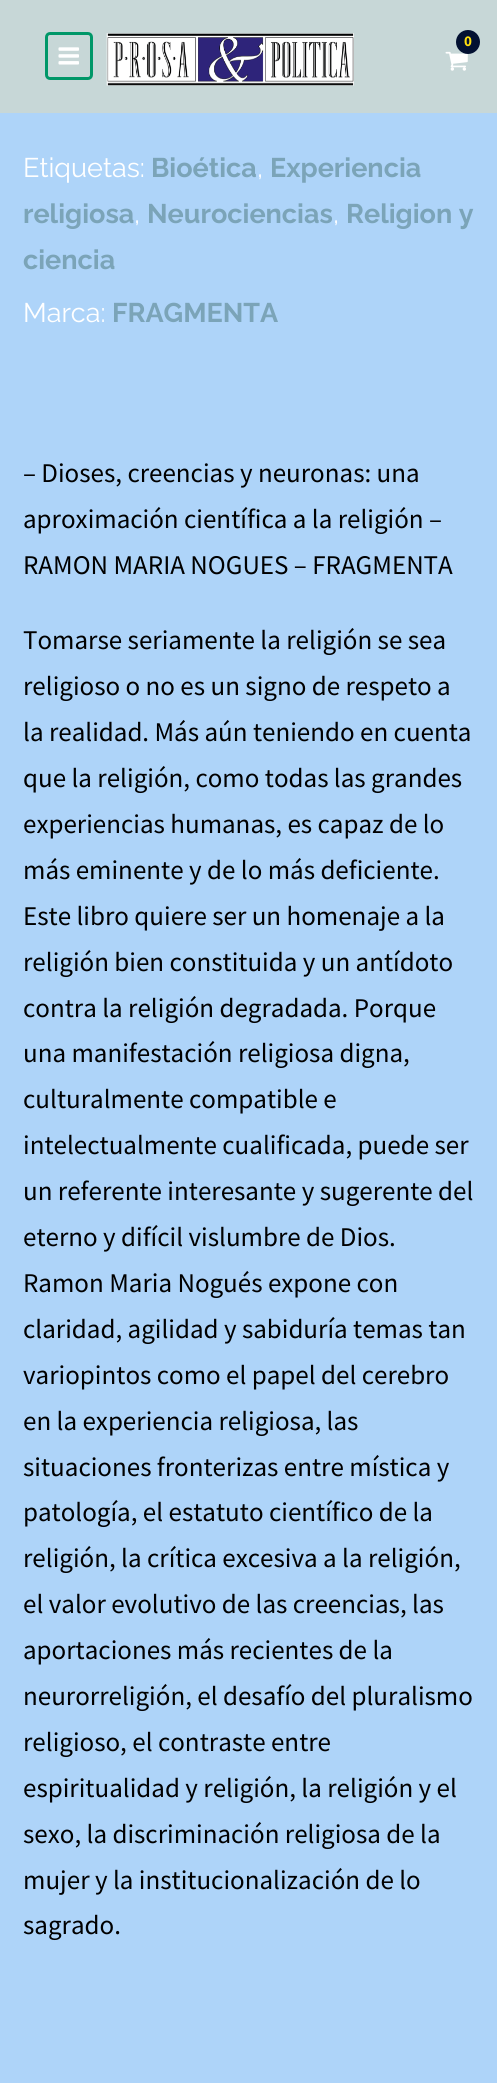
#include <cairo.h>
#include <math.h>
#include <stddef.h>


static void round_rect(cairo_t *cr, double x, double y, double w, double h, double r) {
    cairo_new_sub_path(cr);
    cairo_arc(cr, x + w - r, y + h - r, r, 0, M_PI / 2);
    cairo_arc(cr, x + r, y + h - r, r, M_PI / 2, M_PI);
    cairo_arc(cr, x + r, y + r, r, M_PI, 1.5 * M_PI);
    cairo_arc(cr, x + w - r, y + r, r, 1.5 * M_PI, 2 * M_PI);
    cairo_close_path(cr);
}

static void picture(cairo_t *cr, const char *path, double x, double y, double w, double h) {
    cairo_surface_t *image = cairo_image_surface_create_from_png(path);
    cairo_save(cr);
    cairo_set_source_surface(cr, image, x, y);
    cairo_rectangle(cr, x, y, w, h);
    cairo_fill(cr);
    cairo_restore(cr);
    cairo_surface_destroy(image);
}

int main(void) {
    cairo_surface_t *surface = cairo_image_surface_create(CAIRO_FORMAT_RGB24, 497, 2083);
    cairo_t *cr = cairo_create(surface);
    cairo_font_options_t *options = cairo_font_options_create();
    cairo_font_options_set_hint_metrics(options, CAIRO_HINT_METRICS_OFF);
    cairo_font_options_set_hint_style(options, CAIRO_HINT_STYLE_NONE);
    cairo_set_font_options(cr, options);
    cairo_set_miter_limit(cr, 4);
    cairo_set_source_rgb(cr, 0.682, 0.831, 0.976);
    cairo_paint(cr);
    cairo_set_source_rgb(cr, 0.78, 0.843, 0.843);
    cairo_rectangle(cr, 0, 0, 497, 113);
    cairo_fill(cr);
    round_rect(cr, 46.5, 33.5, 45, 45, 3.5);
    cairo_set_source_rgb(cr, 0, 0.592, 0.408);
    cairo_set_line_width(cr, 3);
    cairo_stroke(cr);
    picture(cr, "img1.png", 58, 47, 21, 18);
    picture(cr, "img2.png", 106, 33, 248, 53);
    picture(cr, "img3.png", 445, 51, 23, 20);
    cairo_set_source_rgb(cr, 0.012, 0.067, 0.196);
    cairo_arc(cr, 468, 42, 12, 0, 2 * M_PI);
    cairo_fill(cr);
    cairo_select_font_face(cr, "Source Sans Pro", CAIRO_FONT_SLANT_NORMAL, CAIRO_FONT_WEIGHT_BOLD);
    cairo_set_font_size(cr, 15);
    cairo_set_source_rgb(cr, 1, 0.875, 0.051);
    cairo_move_to(cr, 464, 46);
    cairo_show_text(cr, "0");
    cairo_select_font_face(cr, "Raleway", CAIRO_FONT_SLANT_NORMAL, CAIRO_FONT_WEIGHT_NORMAL);
    cairo_set_font_size(cr, 27);
    cairo_set_source_rgb(cr, 1, 1, 1);
    cairo_move_to(cr, 23, 177);
    cairo_show_text(cr, "Etiquetas:");
    cairo_select_font_face(cr, "Raleway", CAIRO_FONT_SLANT_NORMAL, CAIRO_FONT_WEIGHT_BOLD);
    cairo_set_source_rgb(cr, 0.482, 0.643, 0.722);
    cairo_move_to(cr, 151, 177);
    cairo_show_text(cr, "Bioética");
    cairo_select_font_face(cr, "Raleway", CAIRO_FONT_SLANT_NORMAL, CAIRO_FONT_WEIGHT_NORMAL);
    cairo_set_source_rgb(cr, 1, 1, 1);
    cairo_move_to(cr, 257, 177);
    cairo_show_text(cr, ",");
    cairo_select_font_face(cr, "Raleway", CAIRO_FONT_SLANT_NORMAL, CAIRO_FONT_WEIGHT_BOLD);
    cairo_set_source_rgb(cr, 0.482, 0.643, 0.722);
    cairo_move_to(cr, 270, 177);
    cairo_show_text(cr, "Experiencia");
    cairo_move_to(cr, 23, 223);
    cairo_show_text(cr, "religiosa");
    cairo_select_font_face(cr, "Raleway", CAIRO_FONT_SLANT_NORMAL, CAIRO_FONT_WEIGHT_NORMAL);
    cairo_set_source_rgb(cr, 1, 1, 1);
    cairo_move_to(cr, 134, 223);
    cairo_show_text(cr, ",");
    cairo_select_font_face(cr, "Raleway", CAIRO_FONT_SLANT_NORMAL, CAIRO_FONT_WEIGHT_BOLD);
    cairo_set_source_rgb(cr, 0.482, 0.643, 0.722);
    cairo_move_to(cr, 147, 223);
    cairo_show_text(cr, "Neurociencias");
    cairo_select_font_face(cr, "Raleway", CAIRO_FONT_SLANT_NORMAL, CAIRO_FONT_WEIGHT_NORMAL);
    cairo_set_source_rgb(cr, 1, 1, 1);
    cairo_move_to(cr, 333, 223);
    cairo_show_text(cr, ",");
    cairo_select_font_face(cr, "Raleway", CAIRO_FONT_SLANT_NORMAL, CAIRO_FONT_WEIGHT_BOLD);
    cairo_set_source_rgb(cr, 0.482, 0.643, 0.722);
    cairo_move_to(cr, 346, 223);
    cairo_show_text(cr, "Religion y");
    cairo_move_to(cr, 23, 269);
    cairo_show_text(cr, "ciencia");
    cairo_select_font_face(cr, "Raleway", CAIRO_FONT_SLANT_NORMAL, CAIRO_FONT_WEIGHT_NORMAL);
    cairo_set_source_rgb(cr, 1, 1, 1);
    cairo_move_to(cr, 23, 322);
    cairo_show_text(cr, "Marca:");
    cairo_select_font_face(cr, "Raleway", CAIRO_FONT_SLANT_NORMAL, CAIRO_FONT_WEIGHT_BOLD);
    cairo_set_source_rgb(cr, 0.482, 0.643, 0.722);
    cairo_move_to(cr, 112, 322);
    cairo_show_text(cr, "FRAGMENTA");
    cairo_select_font_face(cr, "Source Sans Pro", CAIRO_FONT_SLANT_NORMAL, CAIRO_FONT_WEIGHT_NORMAL);
    cairo_set_source_rgb(cr, 0, 0, 0);
    cairo_move_to(cr, 23, 482);
    cairo_show_text(cr, "– Dioses, creencias y neuronas: una");
    cairo_move_to(cr, 23, 528);
    cairo_show_text(cr, "aproximación científica a la religión –");
    cairo_move_to(cr, 23, 574);
    cairo_show_text(cr, "RAMON MARIA NOGUES – FRAGMENTA");
    cairo_move_to(cr, 23, 649);
    cairo_show_text(cr, "Tomarse seriamente la religión se sea");
    cairo_move_to(cr, 23, 695);
    cairo_show_text(cr, "religioso o no es un signo de respeto a");
    cairo_move_to(cr, 23, 741);
    cairo_show_text(cr, "la realidad. Más aún teniendo en cuenta");
    cairo_move_to(cr, 23, 787);
    cairo_show_text(cr, "que la religión, como todas las grandes");
    cairo_move_to(cr, 23, 833);
    cairo_show_text(cr, "experiencias humanas, es capaz de lo");
    cairo_move_to(cr, 23, 879);
    cairo_show_text(cr, "más eminente y de lo más deficiente.");
    cairo_move_to(cr, 23, 925);
    cairo_show_text(cr, "Este libro quiere ser un homenaje a la");
    cairo_move_to(cr, 23, 971);
    cairo_show_text(cr, "religión bien constituida y un antídoto");
    cairo_move_to(cr, 23, 1017);
    cairo_show_text(cr, "contra la religión degradada. Porque");
    cairo_move_to(cr, 23, 1062);
    cairo_show_text(cr, "una manifestación religiosa digna,");
    cairo_move_to(cr, 23, 1108);
    cairo_show_text(cr, "culturalmente compatible e");
    cairo_move_to(cr, 23, 1154);
    cairo_show_text(cr, "intelectualmente cualificada, puede ser");
    cairo_move_to(cr, 23, 1200);
    cairo_show_text(cr, "un referente interesante y sugerente del");
    cairo_move_to(cr, 23, 1246);
    cairo_show_text(cr, "eterno y difícil vislumbre de Dios.");
    cairo_move_to(cr, 23, 1292);
    cairo_show_text(cr, "Ramon Maria Nogués expone con");
    cairo_move_to(cr, 23, 1338);
    cairo_show_text(cr, "claridad, agilidad y sabiduría temas tan");
    cairo_move_to(cr, 23, 1384);
    cairo_show_text(cr, "variopintos como el papel del cerebro");
    cairo_move_to(cr, 23, 1430);
    cairo_show_text(cr, "en la experiencia religiosa, las");
    cairo_move_to(cr, 23, 1476);
    cairo_show_text(cr, "situaciones fronterizas entre mística y");
    cairo_move_to(cr, 23, 1521);
    cairo_show_text(cr, "patología, el estatuto científico de la");
    cairo_move_to(cr, 23, 1567);
    cairo_show_text(cr, "religión, la crítica excesiva a la religión,");
    cairo_move_to(cr, 23, 1613);
    cairo_show_text(cr, "el valor evolutivo de las creencias, las");
    cairo_move_to(cr, 23, 1659);
    cairo_show_text(cr, "aportaciones más recientes de la");
    cairo_move_to(cr, 23, 1705);
    cairo_show_text(cr, "neurorreligión, el desafío del pluralismo");
    cairo_move_to(cr, 23, 1751);
    cairo_show_text(cr, "religioso, el contraste entre");
    cairo_move_to(cr, 23, 1797);
    cairo_show_text(cr, "espiritualidad y religión, la religión y el");
    cairo_move_to(cr, 23, 1843);
    cairo_show_text(cr, "sexo, la discriminación religiosa de la");
    cairo_move_to(cr, 23, 1889);
    cairo_show_text(cr, "mujer y la institucionalización de lo");
    cairo_move_to(cr, 23, 1934);
    cairo_show_text(cr, "sagrado.");
    cairo_surface_write_to_png(surface, "page.png");
    cairo_font_options_destroy(options);
    cairo_destroy(cr);
    cairo_surface_destroy(surface);
    return 0;
}
